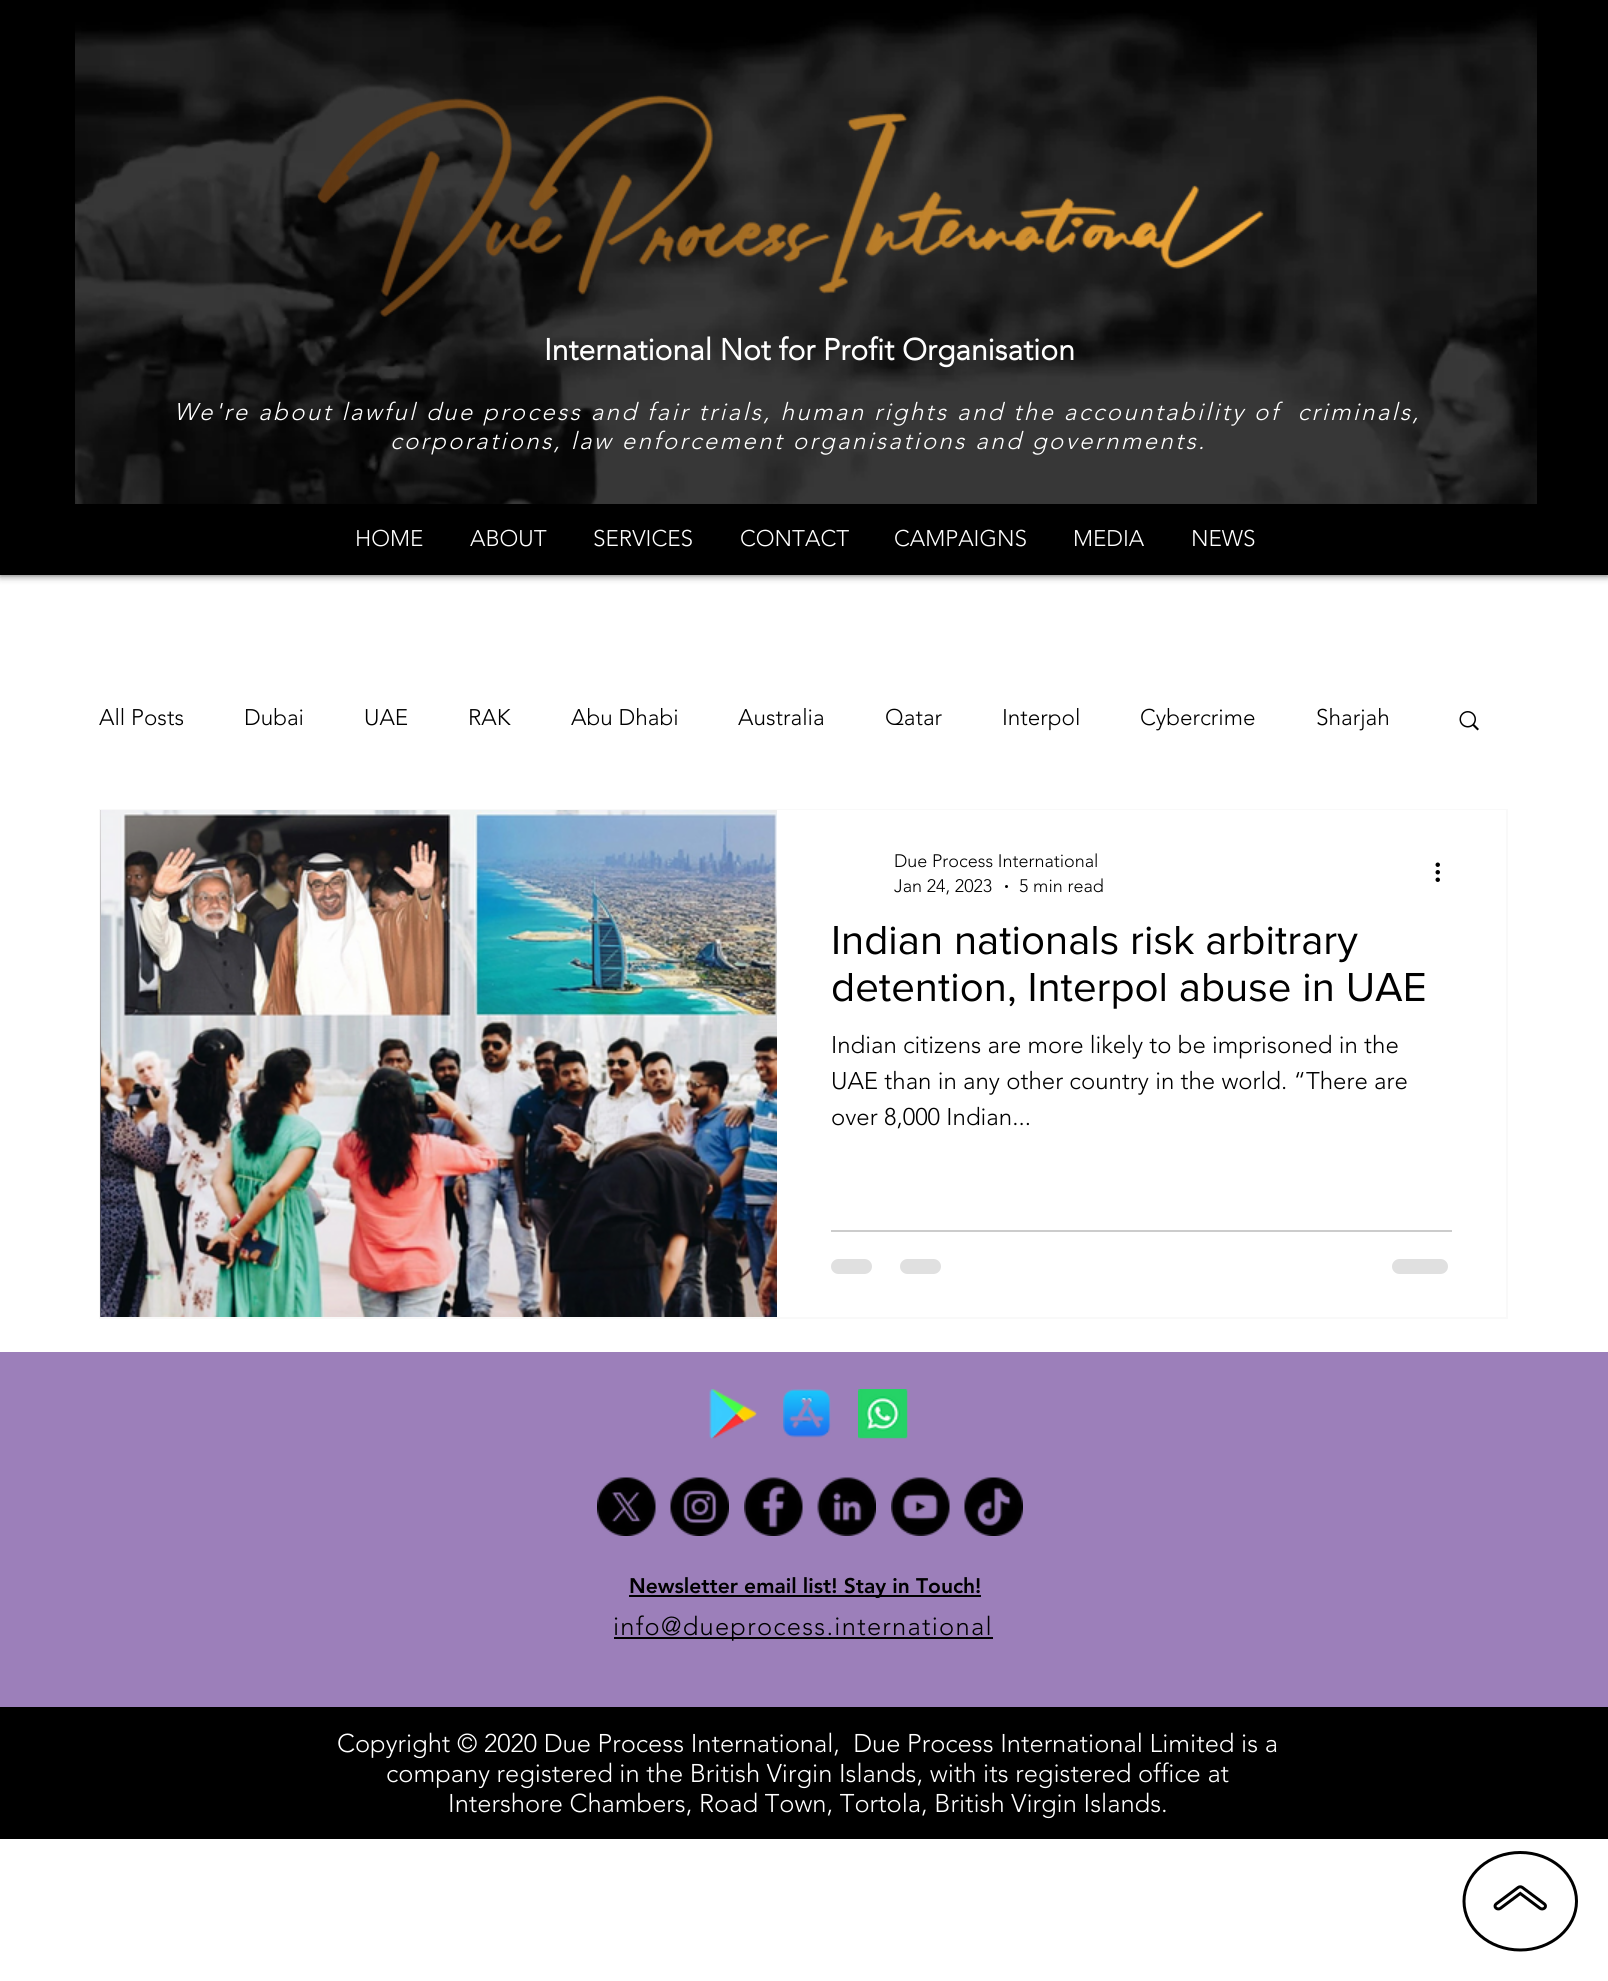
#include <cairo.h>
#include <math.h>
#include <stddef.h>


static void spaced_text(cairo_t *cr, double x, double y, const char *s, double letter, double word) {
    cairo_move_to(cr, x, y);
    while (*s) {
        char ch[5] = {0};
        int n = 0;
        do ch[n++] = *s++; while ((*s & 0xC0) == 0x80);
        cairo_show_text(cr, ch);
        cairo_rel_move_to(cr, letter + word * (*ch == ' '), 0);
    }
}

static void round_rect(cairo_t *cr, double x, double y, double w, double h, double r) {
    cairo_new_sub_path(cr);
    cairo_arc(cr, x + w - r, y + h - r, r, 0, M_PI / 2);
    cairo_arc(cr, x + r, y + h - r, r, M_PI / 2, M_PI);
    cairo_arc(cr, x + r, y + r, r, M_PI, 1.5 * M_PI);
    cairo_arc(cr, x + w - r, y + r, r, 1.5 * M_PI, 2 * M_PI);
    cairo_close_path(cr);
}

static void shadow(cairo_t *cr, double x, double y, double w, double h, double r, double blur, double alpha) {
    cairo_push_group_with_content(cr, CAIRO_CONTENT_ALPHA);
    cairo_set_operator(cr, CAIRO_OPERATOR_SOURCE);
    for (int i = 15; i >= -15 && fmin(w, h) + blur * i / 3 > 0; i -= 2) {
        double e = blur * i / 6;
        cairo_set_source_rgba(cr, 0, 0, 0, alpha * erfc((i - 1) / 8.5) / 2);
        round_rect(cr, x - e, y - e, w + 2 * e, h + 2 * e, fmax(0, fmin(r + e + blur * .6, fmin(w, h) / 2 + e)));
        cairo_fill(cr);
    }
    cairo_pattern_t *soft = cairo_pop_group(cr);
    cairo_mask(cr, soft);
    cairo_pattern_destroy(soft);
}

static void picture(cairo_t *cr, const char *path, double x, double y, double w, double h) {
    cairo_surface_t *image = cairo_image_surface_create_from_png(path);
    cairo_save(cr);
    cairo_set_source_surface(cr, image, x, y);
    cairo_rectangle(cr, x, y, w, h);
    cairo_fill(cr);
    cairo_restore(cr);
    cairo_surface_destroy(image);
}

int main(void) {
    cairo_surface_t *surface = cairo_image_surface_create(CAIRO_FORMAT_RGB24, 1608, 1981);
    cairo_t *cr = cairo_create(surface);
    cairo_font_options_t *options = cairo_font_options_create();
    cairo_font_options_set_hint_metrics(options, CAIRO_HINT_METRICS_OFF);
    cairo_font_options_set_hint_style(options, CAIRO_HINT_STYLE_NONE);
    cairo_set_font_options(cr, options);
    cairo_set_miter_limit(cr, 4);
    cairo_set_source_rgb(cr, 1, 1, 1);
    cairo_paint(cr);
    cairo_set_source_rgb(cr, 0, 0, 0);
    shadow(cr, 0, 0, 1608, 575, 0, 4, 0.7);
    cairo_set_source_rgb(cr, 0, 0, 0);
    cairo_rectangle(cr, 0, 0, 1608, 575);
    cairo_fill(cr);
    picture(cr, "img1.png", 75, 0, 1462, 504);
    picture(cr, "img2.png", 317, 94, 947, 223);
    cairo_select_font_face(cr, "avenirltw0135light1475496", CAIRO_FONT_SLANT_NORMAL, CAIRO_FONT_WEIGHT_BOLD);
    cairo_set_font_size(cr, 30);
    cairo_set_source_rgb(cr, 1, 1, 1);
    cairo_move_to(cr, 544, 360);
    cairo_show_text(cr, "International Not for Profit Organisation");
    cairo_select_font_face(cr, "avenirltw0135light1475496 Light", CAIRO_FONT_SLANT_ITALIC, CAIRO_FONT_WEIGHT_NORMAL);
    cairo_set_font_size(cr, 24);
    spaced_text(cr, 174, 420, "We're about lawful due process and fair trials, human rights and the accountability of  criminals,", 2.4, 0);
    spaced_text(cr, 390, 449, "corporations, law enforcement organisations and governments.", 2.4, 0);
    cairo_select_font_face(cr, "avenirltw0135light1475496 Light", CAIRO_FONT_SLANT_NORMAL, CAIRO_FONT_WEIGHT_NORMAL);
    cairo_set_font_size(cr, 22.5);
    cairo_move_to(cr, 355, 546);
    cairo_show_text(cr, "HOME");
    cairo_move_to(cr, 470, 546);
    cairo_show_text(cr, "ABOUT");
    cairo_move_to(cr, 593, 546);
    cairo_show_text(cr, "SERVICES");
    cairo_move_to(cr, 740, 546);
    cairo_show_text(cr, "CONTACT");
    cairo_move_to(cr, 894, 546);
    cairo_show_text(cr, "CAMPAIGNS");
    cairo_move_to(cr, 1073, 546);
    cairo_show_text(cr, "MEDIA");
    cairo_move_to(cr, 1191, 546);
    cairo_show_text(cr, "NEWS");
    cairo_set_source_rgb(cr, 0, 0, 0);
    cairo_move_to(cr, 99, 725);
    cairo_show_text(cr, "All Posts");
    cairo_move_to(cr, 244, 725);
    cairo_show_text(cr, "Dubai");
    cairo_move_to(cr, 364, 725);
    cairo_show_text(cr, "UAE");
    cairo_move_to(cr, 468, 725);
    cairo_show_text(cr, "RAK");
    cairo_move_to(cr, 571, 725);
    cairo_show_text(cr, "Abu Dhabi");
    cairo_move_to(cr, 738, 725);
    cairo_show_text(cr, "Australia");
    cairo_move_to(cr, 885, 725);
    cairo_show_text(cr, "Qatar");
    cairo_move_to(cr, 1002, 725);
    cairo_show_text(cr, "Interpol");
    cairo_move_to(cr, 1140, 725);
    cairo_show_text(cr, "Cybercrime");
    cairo_move_to(cr, 1316, 725);
    cairo_show_text(cr, "Sharjah");
    picture(cr, "img3.png", 1459, 711, 20, 20);
    cairo_rectangle(cr, 100, 810, 1407, 508);
    cairo_set_source_rgb(cr, 0.976, 0.976, 0.976);
    cairo_stroke(cr);
    picture(cr, "img4.png", 100, 810, 1, 507);
    picture(cr, "img5.png", 101, 810, 676, 507);
    cairo_set_source_rgb(cr, 1, 1, 1);
    cairo_rectangle(cr, 777, 810, 729, 1);
    cairo_fill(cr);
    cairo_set_font_size(cr, 18);
    cairo_set_source_rgb(cr, 0, 0, 0);
    cairo_move_to(cr, 894, 867);
    cairo_show_text(cr, "Due Process International");
    cairo_move_to(cr, 894, 892);
    cairo_show_text(cr, "Jan 24, 2023");
    cairo_new_path(cr);
    cairo_arc(cr, 1006.5, 886.5, 1.5, 0, 2 * M_PI);
    cairo_fill(cr);
    cairo_move_to(cr, 1019, 892);
    cairo_show_text(cr, "5 min read");
    picture(cr, "img6.png", 1435, 862, 5, 20);
    cairo_select_font_face(cr, "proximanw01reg", CAIRO_FONT_SLANT_NORMAL, CAIRO_FONT_WEIGHT_NORMAL);
    cairo_set_font_size(cr, 42);
    cairo_move_to(cr, 831, 954);
    cairo_show_text(cr, "Indian nationals risk arbitrary");
    cairo_move_to(cr, 831, 1001);
    cairo_show_text(cr, "detention, Interpol abuse in UAE");
    cairo_select_font_face(cr, "avenirltw0135light1475496 Light", CAIRO_FONT_SLANT_NORMAL, CAIRO_FONT_WEIGHT_NORMAL);
    cairo_set_font_size(cr, 24);
    cairo_move_to(cr, 831, 1053);
    cairo_show_text(cr, "Indian citizens are more likely to be imprisoned in the");
    cairo_move_to(cr, 831, 1089);
    cairo_show_text(cr, "UAE than in any other country in the world. “There are");
    cairo_move_to(cr, 831, 1125);
    cairo_show_text(cr, "over 8,000 Indian...");
    cairo_set_source_rgb(cr, 0.8, 0.8, 0.8);
    cairo_rectangle(cr, 831, 1230, 621, 2);
    cairo_fill(cr);
    cairo_set_source_rgb(cr, 0.878, 0.878, 0.878);
    round_rect(cr, 831, 1259, 41, 15, 7.5);
    cairo_fill(cr);
    round_rect(cr, 900, 1259, 41, 15, 7.5);
    cairo_fill(cr);
    round_rect(cr, 1392, 1259, 56, 15, 7.5);
    cairo_fill(cr);
    cairo_set_source_rgb(cr, 0.612, 0.498, 0.729);
    cairo_rectangle(cr, 0, 1352, 1608, 355);
    cairo_fill(cr);
    picture(cr, "img7.png", 709, 1389, 48, 50);
    picture(cr, "img8.png", 783, 1389, 48, 49);
    picture(cr, "img9.png", 858, 1389, 50, 50);
    picture(cr, "img10.png", 597, 1477, 59, 59);
    picture(cr, "img11.png", 670, 1477, 59, 59);
    picture(cr, "img12.png", 744, 1477, 59, 59);
    picture(cr, "img13.png", 817, 1477, 59, 59);
    picture(cr, "img14.png", 891, 1477, 59, 59);
    picture(cr, "img15.png", 964, 1477, 59, 59);
    cairo_set_source_rgb(cr, 0, 0, 0);
    cairo_rectangle(cr, 629, 1595, 352, 2);
    cairo_fill(cr);
    cairo_select_font_face(cr, "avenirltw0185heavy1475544 Black", CAIRO_FONT_SLANT_NORMAL, CAIRO_FONT_WEIGHT_NORMAL);
    cairo_set_font_size(cr, 21);
    cairo_move_to(cr, 629, 1593);
    cairo_show_text(cr, "Newsletter email list! Stay in Touch!");
    cairo_rectangle(cr, 614, 1637, 379, 2);
    cairo_fill(cr);
    cairo_select_font_face(cr, "avenirltw0135light1475496 Light", CAIRO_FONT_SLANT_NORMAL, CAIRO_FONT_WEIGHT_NORMAL);
    cairo_set_font_size(cr, 25.5);
    spaced_text(cr, 613, 1635, "info@dueprocess.international", 1.25, 0);
    cairo_rectangle(cr, 0, 1707, 1608, 132);
    cairo_fill(cr);
    cairo_set_source_rgb(cr, 1, 1, 1);
    cairo_move_to(cr, 337, 1752);
    cairo_show_text(cr, "Copyright © 2020 Due Process International,  Due Process International Limited is a");
    cairo_move_to(cr, 386, 1782);
    cairo_show_text(cr, "company registered in the British Virgin Islands, with its registered office at");
    cairo_move_to(cr, 448, 1812);
    cairo_show_text(cr, "Intershore Chambers, Road Town, Tortola, British Virgin Islands.");
    picture(cr, "img16.png", 1462, 1851, 116, 101);
    cairo_surface_write_to_png(surface, "page.png");
    cairo_font_options_destroy(options);
    cairo_destroy(cr);
    cairo_surface_destroy(surface);
    return 0;
}
